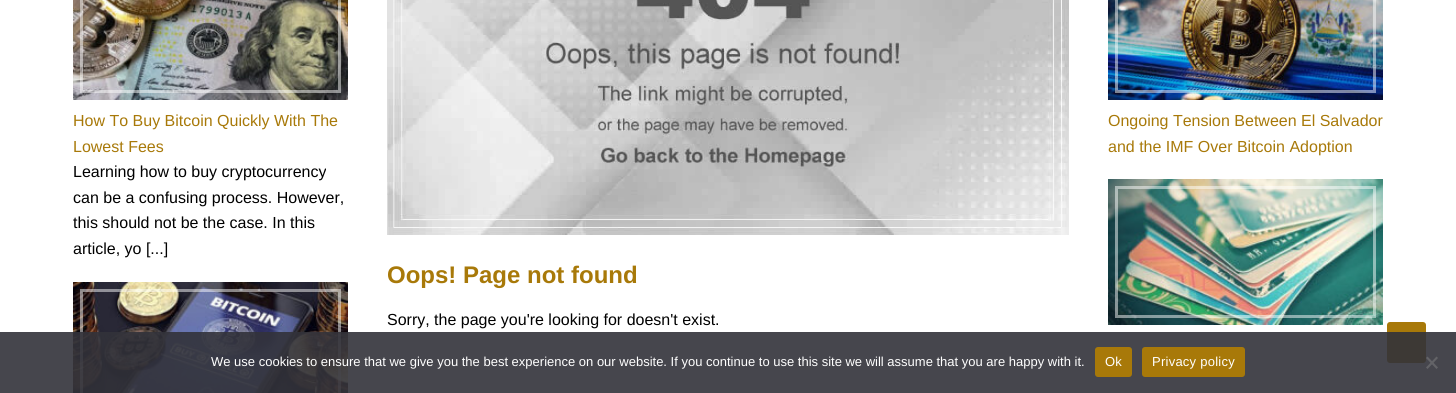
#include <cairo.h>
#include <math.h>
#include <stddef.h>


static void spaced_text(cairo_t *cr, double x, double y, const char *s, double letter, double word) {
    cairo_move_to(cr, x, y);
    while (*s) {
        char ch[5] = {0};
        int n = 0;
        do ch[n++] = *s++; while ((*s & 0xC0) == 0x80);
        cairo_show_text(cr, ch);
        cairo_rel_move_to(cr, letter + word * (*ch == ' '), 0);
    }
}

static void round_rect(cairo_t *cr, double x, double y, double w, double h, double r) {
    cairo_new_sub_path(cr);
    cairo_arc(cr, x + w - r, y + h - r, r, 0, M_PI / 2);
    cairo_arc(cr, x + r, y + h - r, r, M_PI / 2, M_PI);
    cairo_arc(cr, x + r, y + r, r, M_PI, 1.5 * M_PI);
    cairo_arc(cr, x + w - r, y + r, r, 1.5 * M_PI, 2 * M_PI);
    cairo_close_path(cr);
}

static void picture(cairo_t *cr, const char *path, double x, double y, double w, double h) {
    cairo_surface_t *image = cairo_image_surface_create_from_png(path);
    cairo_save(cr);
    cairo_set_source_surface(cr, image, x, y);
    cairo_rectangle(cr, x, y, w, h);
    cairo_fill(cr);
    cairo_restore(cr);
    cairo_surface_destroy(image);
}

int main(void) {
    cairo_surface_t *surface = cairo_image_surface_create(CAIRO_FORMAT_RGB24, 1456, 393);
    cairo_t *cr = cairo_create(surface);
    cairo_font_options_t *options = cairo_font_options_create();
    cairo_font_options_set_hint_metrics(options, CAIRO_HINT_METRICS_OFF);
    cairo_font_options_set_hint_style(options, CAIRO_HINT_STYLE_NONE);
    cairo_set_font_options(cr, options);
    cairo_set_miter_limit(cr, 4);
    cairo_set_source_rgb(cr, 1, 1, 1);
    cairo_paint(cr);
    picture(cr, "img1.png", 73, 0, 275, 100);
    cairo_rectangle(cr, 81.5, -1.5, 258, 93);
    cairo_set_source_rgba(cr, 1, 1, 1, 0.49);
    cairo_set_line_width(cr, 3);
    cairo_stroke(cr);
    cairo_select_font_face(cr, "Liberation Sans", CAIRO_FONT_SLANT_NORMAL, CAIRO_FONT_WEIGHT_NORMAL);
    cairo_set_font_size(cr, 16);
    cairo_set_source_rgb(cr, 0.659, 0.475, 0.039);
    cairo_move_to(cr, 73, 126);
    cairo_show_text(cr, "How To Buy Bitcoin Quickly With The");
    cairo_move_to(cr, 73, 152);
    cairo_show_text(cr, "Lowest Fees");
    cairo_set_source_rgb(cr, 0, 0, 0);
    cairo_move_to(cr, 73, 177);
    cairo_show_text(cr, "Learning how to buy cryptocurrency");
    cairo_move_to(cr, 73, 203);
    cairo_show_text(cr, "can be a confusing process. However,");
    cairo_move_to(cr, 73, 228);
    cairo_show_text(cr, "this should not be the case. In this");
    cairo_move_to(cr, 73, 254);
    cairo_show_text(cr, "article, yo [...]");
    picture(cr, "img2.png", 73, 282, 275, 111);
    cairo_rectangle(cr, 81.5, 290.5, 258, 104);
    cairo_set_source_rgba(cr, 1, 1, 1, 0.49);
    cairo_stroke(cr);
    picture(cr, "img3.png", 1108, 0, 275, 100);
    cairo_rectangle(cr, 1116.5, -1.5, 258, 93);
    cairo_stroke(cr);
    cairo_set_source_rgb(cr, 0.659, 0.475, 0.039);
    cairo_move_to(cr, 1108, 126);
    cairo_show_text(cr, "Ongoing Tension Between El Salvador");
    cairo_move_to(cr, 1108, 152);
    cairo_show_text(cr, "and the IMF Over Bitcoin Adoption");
    picture(cr, "img4.png", 1108, 179, 275, 146);
    cairo_rectangle(cr, 1116.5, 187.5, 258, 129);
    cairo_set_source_rgba(cr, 1, 1, 1, 0.49);
    cairo_stroke(cr);
    picture(cr, "img5.png", 387, 0, 682, 235);
    cairo_select_font_face(cr, "Liberation Sans", CAIRO_FONT_SLANT_NORMAL, CAIRO_FONT_WEIGHT_BOLD);
    cairo_set_font_size(cr, 24);
    cairo_set_source_rgb(cr, 0.659, 0.475, 0.039);
    cairo_move_to(cr, 387, 283);
    cairo_show_text(cr, "Oops! Page not found");
    cairo_select_font_face(cr, "Liberation Sans", CAIRO_FONT_SLANT_NORMAL, CAIRO_FONT_WEIGHT_NORMAL);
    cairo_set_font_size(cr, 16);
    cairo_set_source_rgb(cr, 0, 0, 0);
    cairo_move_to(cr, 387, 325);
    cairo_show_text(cr, "Sorry, the page you're looking for doesn't exist.");
    cairo_set_source_rgb(cr, 0.659, 0.475, 0.039);
    round_rect(cr, 1387, 322, 39, 41, 3);
    cairo_fill(cr);
    cairo_set_source_rgba(cr, 0.196, 0.196, 0.227, 0.9);
    cairo_rectangle(cr, 0, 332, 1456, 61);
    cairo_fill(cr);
    cairo_set_font_size(cr, 13);
    cairo_set_source_rgb(cr, 1, 1, 1);
    cairo_move_to(cr, 211, 366);
    cairo_show_text(cr, "We use cookies to ensure that we give you the best experience on our website. If you continue to use this site we will assume that you are happy with it.");
    cairo_set_source_rgb(cr, 0.659, 0.475, 0.039);
    round_rect(cr, 1095, 347, 37, 30, 3);
    cairo_fill(cr);
    cairo_set_source_rgb(cr, 1, 1, 1);
    spaced_text(cr, 1105, 366, "Ok", 0.25, 0);
    cairo_set_source_rgb(cr, 0.659, 0.475, 0.039);
    round_rect(cr, 1142, 347, 103, 30, 3);
    cairo_fill(cr);
    cairo_set_source_rgb(cr, 1, 1, 1);
    spaced_text(cr, 1152, 366, "Privacy policy", 0.25, 0);
    cairo_set_source_rgb(cr, 0.388, 0.388, 0.404);
    cairo_new_path(cr);
    cairo_move_to(cr, 1436.5, 356.5);
    cairo_line_to(cr, 1438, 358);
    cairo_line_to(cr, 1427.5, 369);
    cairo_line_to(cr, 1426, 367.5);
    cairo_close_path(cr);
    cairo_fill(cr);
    cairo_new_path(cr);
    cairo_move_to(cr, 1426, 358);
    cairo_line_to(cr, 1427.5, 356.5);
    cairo_line_to(cr, 1438, 367.5);
    cairo_line_to(cr, 1436.5, 369);
    cairo_close_path(cr);
    cairo_fill(cr);
    cairo_surface_write_to_png(surface, "page.png");
    cairo_font_options_destroy(options);
    cairo_destroy(cr);
    cairo_surface_destroy(surface);
    return 0;
}
